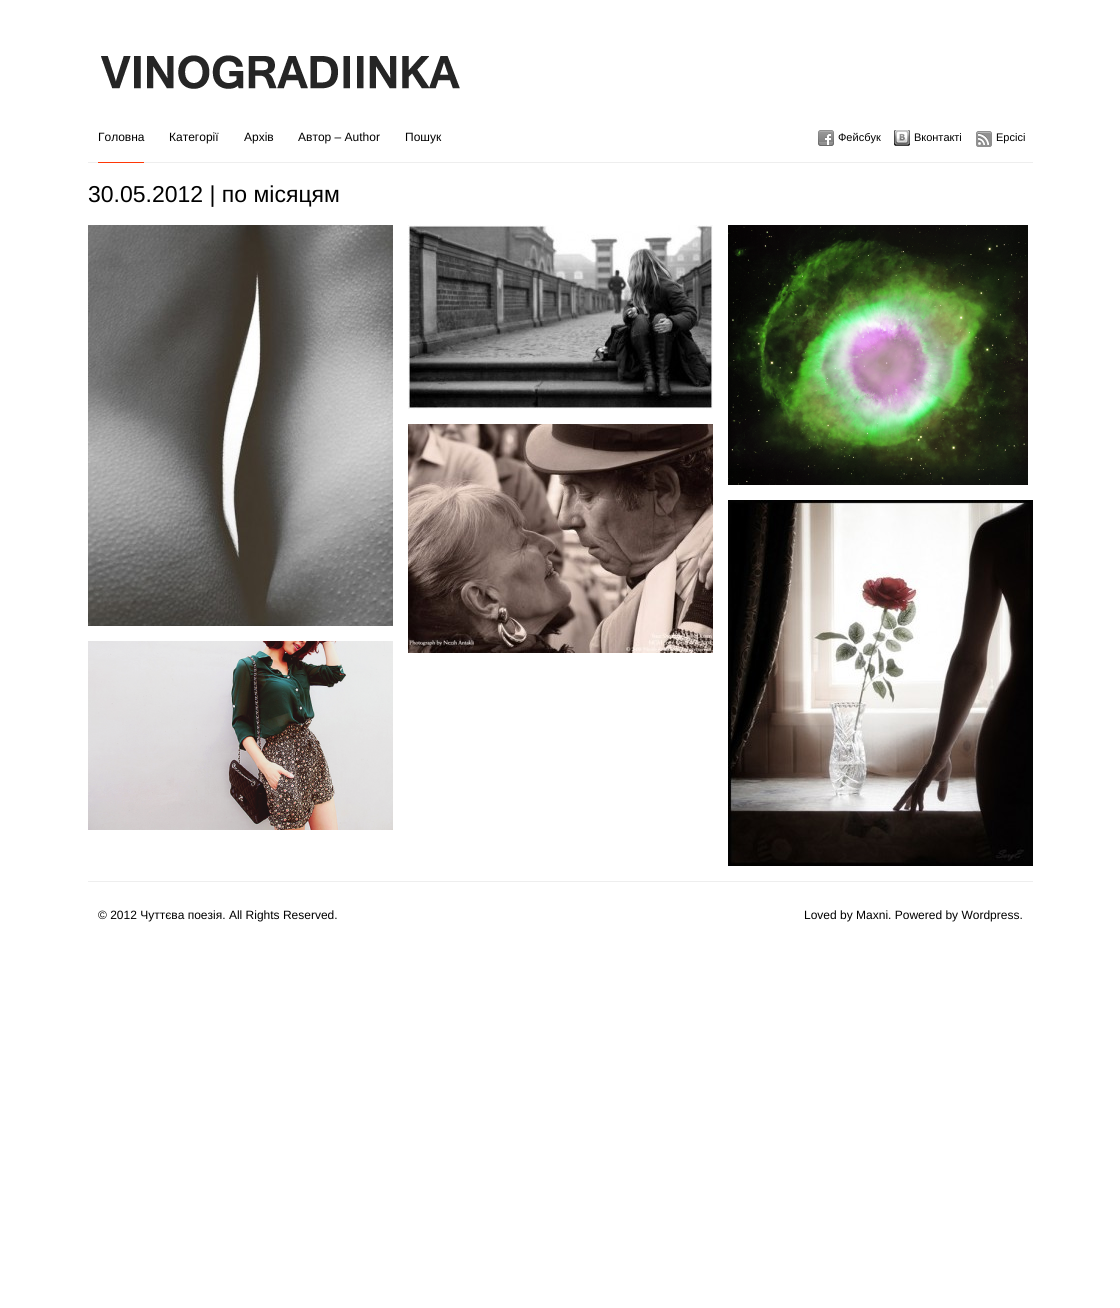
#include <cairo.h>
#include <math.h>
#include <stddef.h>


static void picture(cairo_t *cr, const char *path, double x, double y, double w, double h) {
    cairo_surface_t *image = cairo_image_surface_create_from_png(path);
    cairo_save(cr);
    cairo_set_source_surface(cr, image, x, y);
    cairo_rectangle(cr, x, y, w, h);
    cairo_fill(cr);
    cairo_restore(cr);
    cairo_surface_destroy(image);
}

int main(void) {
    cairo_surface_t *surface = cairo_image_surface_create(CAIRO_FORMAT_RGB24, 1120, 1308);
    cairo_t *cr = cairo_create(surface);
    cairo_font_options_t *options = cairo_font_options_create();
    cairo_font_options_set_hint_metrics(options, CAIRO_HINT_METRICS_OFF);
    cairo_font_options_set_hint_style(options, CAIRO_HINT_STYLE_NONE);
    cairo_set_font_options(cr, options);
    cairo_set_miter_limit(cr, 4);
    cairo_set_source_rgb(cr, 1, 1, 1);
    cairo_paint(cr);
    picture(cr, "img1.png", 101, 55, 359, 34);
    cairo_set_source_rgb(cr, 0.933, 0.933, 0.933);
    cairo_rectangle(cr, 88, 162, 945, 1);
    cairo_fill(cr);
    cairo_set_source_rgb(cr, 1, 0.216, 0.024);
    cairo_rectangle(cr, 98, 162, 46, 1);
    cairo_fill(cr);
    cairo_select_font_face(cr, "Liberation Sans", CAIRO_FONT_SLANT_NORMAL, CAIRO_FONT_WEIGHT_NORMAL);
    cairo_set_font_size(cr, 12);
    cairo_set_source_rgb(cr, 0, 0, 0);
    cairo_move_to(cr, 98, 141);
    cairo_show_text(cr, "Головна");
    cairo_move_to(cr, 169, 141);
    cairo_show_text(cr, "Категорії");
    cairo_move_to(cr, 244, 141);
    cairo_show_text(cr, "Архів");
    cairo_move_to(cr, 298, 141);
    cairo_show_text(cr, "Автор – Author");
    cairo_move_to(cr, 405, 141);
    cairo_show_text(cr, "Пошук");
    picture(cr, "img2.png", 818, 130, 16, 16);
    cairo_set_font_size(cr, 11);
    cairo_move_to(cr, 838, 141);
    cairo_show_text(cr, "Фейсбук");
    picture(cr, "img3.png", 894, 130, 16, 16);
    cairo_move_to(cr, 914, 141);
    cairo_show_text(cr, "Вконтакті");
    picture(cr, "img4.png", 976, 131, 16, 16);
    cairo_move_to(cr, 996, 141);
    cairo_show_text(cr, "Ерсісі");
    cairo_set_font_size(cr, 23);
    cairo_move_to(cr, 88, 202);
    cairo_show_text(cr, "30.05.2012 | по місяцям");
    picture(cr, "img5.png", 88, 225, 305, 401);
    picture(cr, "img6.png", 88, 641, 305, 189);
    picture(cr, "img7.png", 408, 225, 305, 184);
    picture(cr, "img8.png", 408, 424, 305, 229);
    picture(cr, "img9.png", 728, 225, 300, 260);
    picture(cr, "img10.png", 728, 500, 305, 366);
    cairo_set_source_rgb(cr, 0.933, 0.933, 0.933);
    cairo_rectangle(cr, 88, 881, 945, 1);
    cairo_fill(cr);
    cairo_set_font_size(cr, 12);
    cairo_set_source_rgb(cr, 0, 0, 0);
    cairo_move_to(cr, 98, 919);
    cairo_show_text(cr, "© 2012 Чуттєва поезія. All Rights Reserved.");
    cairo_move_to(cr, 804, 919);
    cairo_show_text(cr, "Loved by Maxni. Powered by Wordpress.");
    cairo_surface_write_to_png(surface, "page.png");
    cairo_font_options_destroy(options);
    cairo_destroy(cr);
    cairo_surface_destroy(surface);
    return 0;
}
